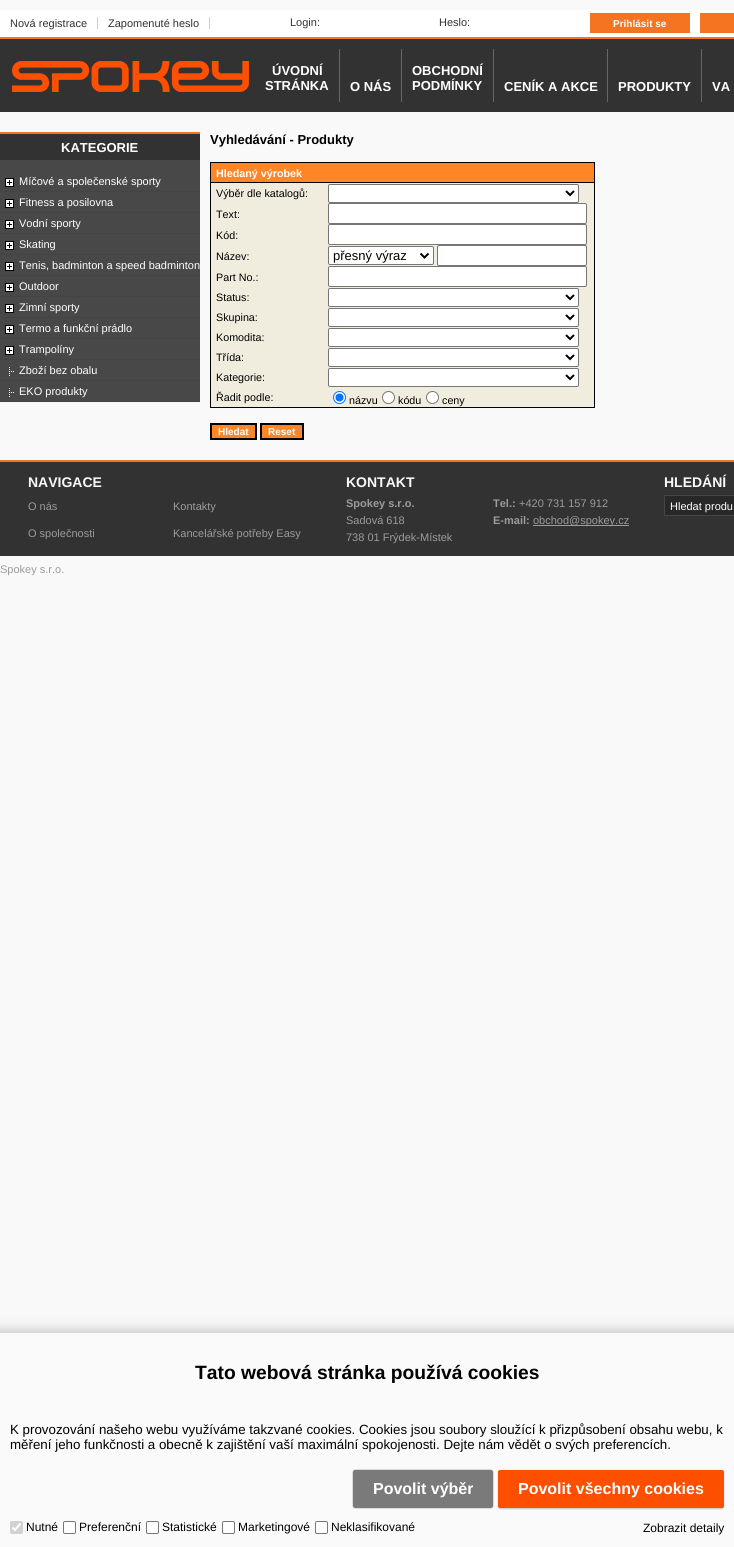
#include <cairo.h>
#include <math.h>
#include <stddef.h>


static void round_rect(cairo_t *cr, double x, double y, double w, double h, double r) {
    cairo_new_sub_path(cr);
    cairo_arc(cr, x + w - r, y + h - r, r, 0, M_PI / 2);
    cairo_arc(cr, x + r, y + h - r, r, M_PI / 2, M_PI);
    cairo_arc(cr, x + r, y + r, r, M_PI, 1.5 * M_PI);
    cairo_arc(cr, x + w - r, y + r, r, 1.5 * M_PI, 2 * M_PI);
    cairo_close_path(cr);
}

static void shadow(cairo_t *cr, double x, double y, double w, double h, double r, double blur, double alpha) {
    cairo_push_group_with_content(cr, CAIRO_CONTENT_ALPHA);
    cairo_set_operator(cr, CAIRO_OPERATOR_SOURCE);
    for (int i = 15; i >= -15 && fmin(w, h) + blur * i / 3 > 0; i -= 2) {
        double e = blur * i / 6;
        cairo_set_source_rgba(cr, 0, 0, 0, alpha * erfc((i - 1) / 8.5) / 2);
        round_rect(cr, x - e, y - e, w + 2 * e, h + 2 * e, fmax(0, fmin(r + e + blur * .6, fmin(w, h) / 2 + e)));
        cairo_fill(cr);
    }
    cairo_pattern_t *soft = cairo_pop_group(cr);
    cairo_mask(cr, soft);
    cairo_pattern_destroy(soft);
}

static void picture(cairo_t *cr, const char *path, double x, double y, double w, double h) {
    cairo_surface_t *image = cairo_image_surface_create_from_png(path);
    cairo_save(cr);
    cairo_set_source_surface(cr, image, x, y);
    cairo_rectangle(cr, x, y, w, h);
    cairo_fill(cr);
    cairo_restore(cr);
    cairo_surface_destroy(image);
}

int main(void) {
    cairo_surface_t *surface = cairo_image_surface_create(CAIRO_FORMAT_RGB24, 734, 1547);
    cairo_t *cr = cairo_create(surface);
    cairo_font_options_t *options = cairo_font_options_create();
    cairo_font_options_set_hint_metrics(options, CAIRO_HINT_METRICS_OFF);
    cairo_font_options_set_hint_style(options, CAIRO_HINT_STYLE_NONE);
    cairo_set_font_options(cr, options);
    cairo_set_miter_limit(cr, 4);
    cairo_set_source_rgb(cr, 0.973, 0.973, 0.973);
    cairo_paint(cr);
    cairo_set_source_rgb(cr, 1, 1, 1);
    cairo_rectangle(cr, 0, 10, 734, 27);
    cairo_fill(cr);
    cairo_set_source_rgb(cr, 0.957, 0.455, 0.129);
    cairo_rectangle(cr, 0, 37, 734, 2);
    cairo_fill(cr);
    cairo_set_source_rgb(cr, 0.8, 0.8, 0.8);
    cairo_rectangle(cr, 97, 17, 1, 12);
    cairo_fill(cr);
    cairo_select_font_face(cr, "Liberation Sans", CAIRO_FONT_SLANT_NORMAL, CAIRO_FONT_WEIGHT_NORMAL);
    cairo_set_font_size(cr, 11);
    cairo_set_source_rgb(cr, 0.196, 0.196, 0.196);
    cairo_move_to(cr, 10, 27);
    cairo_show_text(cr, "Nová registrace");
    cairo_set_source_rgb(cr, 0.8, 0.8, 0.8);
    cairo_rectangle(cr, 209, 17, 1, 12);
    cairo_fill(cr);
    cairo_set_source_rgb(cr, 0.196, 0.196, 0.196);
    cairo_move_to(cr, 108, 27);
    cairo_show_text(cr, "Zapomenuté heslo");
    cairo_move_to(cr, 290, 26);
    cairo_show_text(cr, "Login:");
    cairo_move_to(cr, 439, 26);
    cairo_show_text(cr, "Heslo:");
    cairo_set_source_rgb(cr, 0.957, 0.455, 0.129);
    cairo_rectangle(cr, 590, 13, 100, 20);
    cairo_fill(cr);
    cairo_select_font_face(cr, "Liberation Sans", CAIRO_FONT_SLANT_NORMAL, CAIRO_FONT_WEIGHT_BOLD);
    cairo_set_font_size(cr, 10);
    cairo_set_source_rgb(cr, 1, 1, 1);
    cairo_move_to(cr, 613, 27);
    cairo_show_text(cr, "Prihlásit se");
    cairo_set_source_rgb(cr, 0.957, 0.455, 0.129);
    cairo_rectangle(cr, 700, 13, 34, 20);
    cairo_fill(cr);
    cairo_set_source_rgb(cr, 0.196, 0.196, 0.196);
    cairo_rectangle(cr, 0, 39, 734, 73);
    cairo_fill(cr);
    picture(cr, "img1.png", 12, 61, 237, 31);
    cairo_set_font_size(cr, 13);
    cairo_set_source_rgb(cr, 1, 1, 1);
    cairo_move_to(cr, 272, 75);
    cairo_show_text(cr, "ÚVODNÍ");
    cairo_move_to(cr, 265, 90);
    cairo_show_text(cr, "STRÁNKA");
    cairo_set_source_rgb(cr, 0.404, 0.404, 0.404);
    cairo_rectangle(cr, 339, 49, 1, 53);
    cairo_fill(cr);
    cairo_set_source_rgb(cr, 1, 1, 1);
    cairo_move_to(cr, 350, 91);
    cairo_show_text(cr, "O NÁS");
    cairo_set_source_rgb(cr, 0.404, 0.404, 0.404);
    cairo_rectangle(cr, 401, 49, 1, 53);
    cairo_fill(cr);
    cairo_set_source_rgb(cr, 1, 1, 1);
    cairo_move_to(cr, 412, 75);
    cairo_show_text(cr, "OBCHODNÍ");
    cairo_move_to(cr, 412, 90);
    cairo_show_text(cr, "PODMÍNKY");
    cairo_set_source_rgb(cr, 0.404, 0.404, 0.404);
    cairo_rectangle(cr, 493, 49, 1, 53);
    cairo_fill(cr);
    cairo_set_source_rgb(cr, 1, 1, 1);
    cairo_move_to(cr, 504, 91);
    cairo_show_text(cr, "CENÍK A AKCE");
    cairo_set_source_rgb(cr, 0.404, 0.404, 0.404);
    cairo_rectangle(cr, 607, 49, 1, 53);
    cairo_fill(cr);
    cairo_set_source_rgb(cr, 1, 1, 1);
    cairo_move_to(cr, 618, 91);
    cairo_show_text(cr, "PRODUKTY");
    cairo_set_source_rgb(cr, 0.404, 0.404, 0.404);
    cairo_rectangle(cr, 701, 49, 1, 53);
    cairo_fill(cr);
    cairo_set_source_rgb(cr, 1, 1, 1);
    cairo_move_to(cr, 712, 91);
    cairo_show_text(cr, "VA");
    cairo_set_source_rgb(cr, 0.196, 0.196, 0.196);
    cairo_rectangle(cr, 0, 134, 200, 26);
    cairo_fill(cr);
    cairo_set_source_rgb(cr, 0.957, 0.455, 0.129);
    cairo_rectangle(cr, 0, 132, 200, 2);
    cairo_fill(cr);
    cairo_set_source_rgb(cr, 1, 1, 1);
    cairo_move_to(cr, 61, 152);
    cairo_show_text(cr, "KATEGORIE");
    cairo_set_source_rgb(cr, 0.282, 0.282, 0.282);
    cairo_rectangle(cr, 0, 160, 200, 241);
    cairo_fill(cr);
    cairo_set_source_rgb(cr, 0.267, 0.267, 0.267);
    cairo_rectangle(cr, 0, 191, 200, 1);
    cairo_fill(cr);
    picture(cr, "img2.png", 5, 178, 9, 9);
    cairo_select_font_face(cr, "Liberation Sans", CAIRO_FONT_SLANT_NORMAL, CAIRO_FONT_WEIGHT_NORMAL);
    cairo_set_font_size(cr, 11);
    cairo_set_source_rgb(cr, 1, 1, 1);
    cairo_move_to(cr, 19, 185);
    cairo_show_text(cr, "Míčové a společenské sporty");
    cairo_set_source_rgb(cr, 0.267, 0.267, 0.267);
    cairo_rectangle(cr, 0, 212, 200, 1);
    cairo_fill(cr);
    picture(cr, "img2.png", 5, 199, 9, 9);
    cairo_set_source_rgb(cr, 1, 1, 1);
    cairo_move_to(cr, 19, 206);
    cairo_show_text(cr, "Fitness a posilovna");
    cairo_set_source_rgb(cr, 0.267, 0.267, 0.267);
    cairo_rectangle(cr, 0, 233, 200, 1);
    cairo_fill(cr);
    picture(cr, "img2.png", 5, 220, 9, 9);
    cairo_set_source_rgb(cr, 1, 1, 1);
    cairo_move_to(cr, 19, 227);
    cairo_show_text(cr, "Vodní sporty");
    cairo_set_source_rgb(cr, 0.267, 0.267, 0.267);
    cairo_rectangle(cr, 0, 254, 200, 1);
    cairo_fill(cr);
    picture(cr, "img2.png", 5, 241, 9, 9);
    cairo_set_source_rgb(cr, 1, 1, 1);
    cairo_move_to(cr, 19, 248);
    cairo_show_text(cr, "Skating");
    cairo_set_source_rgb(cr, 0.267, 0.267, 0.267);
    cairo_rectangle(cr, 0, 275, 200, 1);
    cairo_fill(cr);
    picture(cr, "img2.png", 5, 262, 9, 9);
    cairo_set_source_rgb(cr, 1, 1, 1);
    cairo_move_to(cr, 19, 269);
    cairo_show_text(cr, "Tenis, badminton a speed badminton");
    cairo_set_source_rgb(cr, 0.267, 0.267, 0.267);
    cairo_rectangle(cr, 0, 296, 200, 1);
    cairo_fill(cr);
    picture(cr, "img2.png", 5, 283, 9, 9);
    cairo_set_source_rgb(cr, 1, 1, 1);
    cairo_move_to(cr, 19, 290);
    cairo_show_text(cr, "Outdoor");
    cairo_set_source_rgb(cr, 0.267, 0.267, 0.267);
    cairo_rectangle(cr, 0, 317, 200, 1);
    cairo_fill(cr);
    picture(cr, "img2.png", 5, 304, 9, 9);
    cairo_set_source_rgb(cr, 1, 1, 1);
    cairo_move_to(cr, 19, 311);
    cairo_show_text(cr, "Zimní sporty");
    cairo_set_source_rgb(cr, 0.267, 0.267, 0.267);
    cairo_rectangle(cr, 0, 338, 200, 1);
    cairo_fill(cr);
    picture(cr, "img2.png", 5, 325, 9, 9);
    cairo_set_source_rgb(cr, 1, 1, 1);
    cairo_move_to(cr, 19, 332);
    cairo_show_text(cr, "Termo a funkční prádlo");
    cairo_set_source_rgb(cr, 0.267, 0.267, 0.267);
    cairo_rectangle(cr, 0, 359, 200, 1);
    cairo_fill(cr);
    picture(cr, "img2.png", 5, 346, 9, 9);
    cairo_set_source_rgb(cr, 1, 1, 1);
    cairo_move_to(cr, 19, 353);
    cairo_show_text(cr, "Trampolíny");
    cairo_set_source_rgb(cr, 0.267, 0.267, 0.267);
    cairo_rectangle(cr, 0, 380, 200, 1);
    cairo_fill(cr);
    picture(cr, "img3.png", 9, 367, 5, 9);
    cairo_set_source_rgb(cr, 1, 1, 1);
    cairo_move_to(cr, 19, 374);
    cairo_show_text(cr, "Zboží bez obalu");
    cairo_set_source_rgb(cr, 0.267, 0.267, 0.267);
    cairo_rectangle(cr, 0, 401, 200, 1);
    cairo_fill(cr);
    picture(cr, "img3.png", 9, 388, 5, 9);
    cairo_set_source_rgb(cr, 1, 1, 1);
    cairo_move_to(cr, 19, 395);
    cairo_show_text(cr, "EKO produkty");
    cairo_select_font_face(cr, "Liberation Sans", CAIRO_FONT_SLANT_NORMAL, CAIRO_FONT_WEIGHT_BOLD);
    cairo_set_font_size(cr, 13);
    cairo_set_source_rgb(cr, 0, 0, 0);
    cairo_move_to(cr, 210, 144);
    cairo_show_text(cr, "Vyhledávání - Produkty");
    cairo_set_source_rgb(cr, 0.941, 0.929, 0.875);
    cairo_rectangle(cr, 211, 183, 383, 224);
    cairo_fill(cr);
    cairo_rectangle(cr, 210.5, 162.5, 384, 245);
    cairo_set_source_rgb(cr, 0, 0, 0);
    cairo_set_line_width(cr, 1);
    cairo_stroke(cr);
    cairo_set_source_rgb(cr, 1, 0.522, 0.145);
    cairo_rectangle(cr, 211, 163, 383, 19);
    cairo_fill(cr);
    cairo_set_source_rgb(cr, 0, 0, 0);
    cairo_rectangle(cr, 211, 182, 383, 1);
    cairo_fill(cr);
    cairo_set_font_size(cr, 10.75);
    cairo_set_source_rgb(cr, 1, 1, 1);
    cairo_move_to(cr, 216, 177);
    cairo_show_text(cr, "Hledaný výrobek");
    cairo_select_font_face(cr, "Liberation Sans", CAIRO_FONT_SLANT_NORMAL, CAIRO_FONT_WEIGHT_NORMAL);
    cairo_set_source_rgb(cr, 0, 0, 0);
    cairo_move_to(cr, 216, 197);
    cairo_show_text(cr, "Výběr dle katalogů:");
    cairo_set_source_rgb(cr, 1, 1, 1);
    round_rect(cr, 328.5, 184.5, 250, 18, 1.5);
    cairo_fill_preserve(cr);
    cairo_set_source_rgb(cr, 0.463, 0.463, 0.463);
    cairo_stroke(cr);
    cairo_new_path(cr);
    cairo_move_to(cr, 566, 191);
    cairo_line_to(cr, 570, 195);
    cairo_line_to(cr, 574, 191);
    cairo_set_source_rgb(cr, 0, 0, 0);
    cairo_set_line_width(cr, 2);
    cairo_stroke(cr);
    cairo_move_to(cr, 216, 218);
    cairo_show_text(cr, "Text:");
    cairo_set_source_rgb(cr, 1, 1, 1);
    round_rect(cr, 328.5, 203.5, 258, 20, 1.5);
    cairo_fill_preserve(cr);
    cairo_set_source_rgb(cr, 0.463, 0.463, 0.463);
    cairo_set_line_width(cr, 1);
    cairo_stroke(cr);
    cairo_set_source_rgb(cr, 0, 0, 0);
    cairo_move_to(cr, 216, 239);
    cairo_show_text(cr, "Kód:");
    cairo_set_source_rgb(cr, 1, 1, 1);
    round_rect(cr, 328.5, 224.5, 258, 20, 1.5);
    cairo_fill_preserve(cr);
    cairo_set_source_rgb(cr, 0.463, 0.463, 0.463);
    cairo_stroke(cr);
    cairo_set_source_rgb(cr, 0, 0, 0);
    cairo_move_to(cr, 216, 260);
    cairo_show_text(cr, "Název:");
    cairo_set_source_rgb(cr, 1, 1, 1);
    round_rect(cr, 328.5, 246.5, 105, 18, 1.5);
    cairo_fill_preserve(cr);
    cairo_set_source_rgb(cr, 0.463, 0.463, 0.463);
    cairo_stroke(cr);
    cairo_new_path(cr);
    cairo_move_to(cr, 420.5, 253.5);
    cairo_line_to(cr, 424.5, 257.5);
    cairo_line_to(cr, 428.5, 253.5);
    cairo_set_source_rgb(cr, 0, 0, 0);
    cairo_set_line_width(cr, 2);
    cairo_stroke(cr);
    cairo_set_font_size(cr, 13);
    cairo_move_to(cr, 333, 260);
    cairo_show_text(cr, "přesný výraz");
    cairo_set_source_rgb(cr, 1, 1, 1);
    round_rect(cr, 437.5, 245.5, 149, 20, 1.5);
    cairo_fill_preserve(cr);
    cairo_set_source_rgb(cr, 0.463, 0.463, 0.463);
    cairo_set_line_width(cr, 1);
    cairo_stroke(cr);
    cairo_set_font_size(cr, 10.75);
    cairo_set_source_rgb(cr, 0, 0, 0);
    cairo_move_to(cr, 216, 281);
    cairo_show_text(cr, "Part No.:");
    cairo_set_source_rgb(cr, 1, 1, 1);
    round_rect(cr, 328.5, 266.5, 258, 20, 1.5);
    cairo_fill_preserve(cr);
    cairo_set_source_rgb(cr, 0.463, 0.463, 0.463);
    cairo_stroke(cr);
    cairo_set_source_rgb(cr, 0, 0, 0);
    cairo_move_to(cr, 216, 301);
    cairo_show_text(cr, "Status:");
    cairo_set_source_rgb(cr, 1, 1, 1);
    round_rect(cr, 328.5, 288.5, 250, 18, 1.5);
    cairo_fill_preserve(cr);
    cairo_set_source_rgb(cr, 0.463, 0.463, 0.463);
    cairo_stroke(cr);
    cairo_new_path(cr);
    cairo_move_to(cr, 566, 295);
    cairo_line_to(cr, 570, 299);
    cairo_line_to(cr, 574, 295);
    cairo_set_source_rgb(cr, 0, 0, 0);
    cairo_set_line_width(cr, 2);
    cairo_stroke(cr);
    cairo_move_to(cr, 216, 321);
    cairo_show_text(cr, "Skupina:");
    cairo_set_source_rgb(cr, 1, 1, 1);
    round_rect(cr, 328.5, 308.5, 250, 18, 1.5);
    cairo_fill_preserve(cr);
    cairo_set_source_rgb(cr, 0.463, 0.463, 0.463);
    cairo_set_line_width(cr, 1);
    cairo_stroke(cr);
    cairo_new_path(cr);
    cairo_move_to(cr, 566, 315);
    cairo_line_to(cr, 570, 319);
    cairo_line_to(cr, 574, 315);
    cairo_set_source_rgb(cr, 0, 0, 0);
    cairo_set_line_width(cr, 2);
    cairo_stroke(cr);
    cairo_move_to(cr, 216, 341);
    cairo_show_text(cr, "Komodita:");
    cairo_set_source_rgb(cr, 1, 1, 1);
    round_rect(cr, 328.5, 328.5, 250, 18, 1.5);
    cairo_fill_preserve(cr);
    cairo_set_source_rgb(cr, 0.463, 0.463, 0.463);
    cairo_set_line_width(cr, 1);
    cairo_stroke(cr);
    cairo_new_path(cr);
    cairo_move_to(cr, 566, 335);
    cairo_line_to(cr, 570, 339);
    cairo_line_to(cr, 574, 335);
    cairo_set_source_rgb(cr, 0, 0, 0);
    cairo_set_line_width(cr, 2);
    cairo_stroke(cr);
    cairo_move_to(cr, 216, 361);
    cairo_show_text(cr, "Třída:");
    cairo_set_source_rgb(cr, 1, 1, 1);
    round_rect(cr, 328.5, 348.5, 250, 18, 1.5);
    cairo_fill_preserve(cr);
    cairo_set_source_rgb(cr, 0.463, 0.463, 0.463);
    cairo_set_line_width(cr, 1);
    cairo_stroke(cr);
    cairo_new_path(cr);
    cairo_move_to(cr, 566, 355);
    cairo_line_to(cr, 570, 359);
    cairo_line_to(cr, 574, 355);
    cairo_set_source_rgb(cr, 0, 0, 0);
    cairo_set_line_width(cr, 2);
    cairo_stroke(cr);
    cairo_move_to(cr, 216, 381);
    cairo_show_text(cr, "Kategorie:");
    cairo_set_source_rgb(cr, 1, 1, 1);
    round_rect(cr, 328.5, 368.5, 250, 18, 1.5);
    cairo_fill_preserve(cr);
    cairo_set_source_rgb(cr, 0.463, 0.463, 0.463);
    cairo_set_line_width(cr, 1);
    cairo_stroke(cr);
    cairo_new_path(cr);
    cairo_move_to(cr, 566, 375);
    cairo_line_to(cr, 570, 379);
    cairo_line_to(cr, 574, 375);
    cairo_set_source_rgb(cr, 0, 0, 0);
    cairo_set_line_width(cr, 2);
    cairo_stroke(cr);
    cairo_move_to(cr, 216, 401);
    cairo_show_text(cr, "Řadit podle:");
    cairo_set_source_rgb(cr, 1, 1, 1);
    cairo_new_path(cr);
    cairo_arc(cr, 339.5, 397.5, 6, 0, 2 * M_PI);
    cairo_fill_preserve(cr);
    cairo_set_source_rgb(cr, 0, 0.459, 1);
    cairo_set_line_width(cr, 1);
    cairo_stroke(cr);
    cairo_arc(cr, 339.5, 397.5, 4, 0, 2 * M_PI);
    cairo_fill(cr);
    cairo_set_source_rgb(cr, 0, 0, 0);
    cairo_move_to(cr, 349, 404);
    cairo_show_text(cr, "názvu");
    cairo_set_source_rgb(cr, 1, 1, 1);
    cairo_new_path(cr);
    cairo_arc(cr, 388.5, 397.5, 6, 0, 2 * M_PI);
    cairo_fill_preserve(cr);
    cairo_set_source_rgb(cr, 0.463, 0.463, 0.463);
    cairo_stroke(cr);
    cairo_set_source_rgb(cr, 0, 0, 0);
    cairo_move_to(cr, 398, 404);
    cairo_show_text(cr, "kódu");
    cairo_set_source_rgb(cr, 1, 1, 1);
    cairo_new_path(cr);
    cairo_arc(cr, 432.5, 397.5, 6, 0, 2 * M_PI);
    cairo_fill_preserve(cr);
    cairo_set_source_rgb(cr, 0.463, 0.463, 0.463);
    cairo_stroke(cr);
    cairo_set_source_rgb(cr, 0, 0, 0);
    cairo_move_to(cr, 442, 404);
    cairo_show_text(cr, "ceny");
    cairo_set_source_rgb(cr, 1, 0.522, 0.145);
    cairo_rectangle(cr, 211, 424, 45, 15);
    cairo_fill_preserve(cr);
    cairo_set_source_rgb(cr, 0, 0, 0);
    cairo_set_line_width(cr, 2);
    cairo_stroke(cr);
    cairo_select_font_face(cr, "Liberation Sans", CAIRO_FONT_SLANT_NORMAL, CAIRO_FONT_WEIGHT_BOLD);
    cairo_set_font_size(cr, 10);
    cairo_set_source_rgb(cr, 1, 1, 1);
    cairo_move_to(cr, 218, 435);
    cairo_show_text(cr, "Hledat");
    cairo_set_source_rgb(cr, 1, 0.522, 0.145);
    cairo_rectangle(cr, 261, 424, 42, 15);
    cairo_fill_preserve(cr);
    cairo_set_source_rgb(cr, 0, 0, 0);
    cairo_stroke(cr);
    cairo_set_source_rgb(cr, 1, 1, 1);
    cairo_move_to(cr, 268, 435);
    cairo_show_text(cr, "Reset");
    cairo_set_source_rgb(cr, 0.196, 0.196, 0.196);
    cairo_rectangle(cr, 0, 462, 734, 94);
    cairo_fill(cr);
    cairo_set_source_rgb(cr, 0.957, 0.455, 0.129);
    cairo_rectangle(cr, 0, 460, 734, 2);
    cairo_fill(cr);
    cairo_set_font_size(cr, 14);
    cairo_set_source_rgb(cr, 0.969, 0.969, 0.969);
    cairo_move_to(cr, 28, 487);
    cairo_show_text(cr, "NAVIGACE");
    cairo_select_font_face(cr, "Liberation Sans", CAIRO_FONT_SLANT_NORMAL, CAIRO_FONT_WEIGHT_NORMAL);
    cairo_set_font_size(cr, 11);
    cairo_set_source_rgb(cr, 0.608, 0.608, 0.608);
    cairo_move_to(cr, 28, 510);
    cairo_show_text(cr, "O nás");
    cairo_move_to(cr, 173, 510);
    cairo_show_text(cr, "Kontakty");
    cairo_move_to(cr, 28, 537);
    cairo_show_text(cr, "O společnosti");
    cairo_move_to(cr, 173, 537);
    cairo_show_text(cr, "Kancelářské potřeby Easy");
    cairo_select_font_face(cr, "Liberation Sans", CAIRO_FONT_SLANT_NORMAL, CAIRO_FONT_WEIGHT_BOLD);
    cairo_set_font_size(cr, 14);
    cairo_set_source_rgb(cr, 0.969, 0.969, 0.969);
    cairo_move_to(cr, 346, 487);
    cairo_show_text(cr, "KONTAKT");
    cairo_set_font_size(cr, 11);
    cairo_set_source_rgb(cr, 0.608, 0.608, 0.608);
    cairo_move_to(cr, 346, 507);
    cairo_show_text(cr, "Spokey s.r.o.");
    cairo_select_font_face(cr, "Liberation Sans", CAIRO_FONT_SLANT_NORMAL, CAIRO_FONT_WEIGHT_NORMAL);
    cairo_move_to(cr, 346, 524);
    cairo_show_text(cr, "Sadová 618");
    cairo_move_to(cr, 346, 541);
    cairo_show_text(cr, "738 01 Frýdek-Místek");
    cairo_select_font_face(cr, "Liberation Sans", CAIRO_FONT_SLANT_NORMAL, CAIRO_FONT_WEIGHT_BOLD);
    cairo_move_to(cr, 493, 507);
    cairo_show_text(cr, "Tel.:");
    cairo_select_font_face(cr, "Liberation Sans", CAIRO_FONT_SLANT_NORMAL, CAIRO_FONT_WEIGHT_NORMAL);
    cairo_move_to(cr, 519, 507);
    cairo_show_text(cr, "+420 731 157 912");
    cairo_select_font_face(cr, "Liberation Sans", CAIRO_FONT_SLANT_NORMAL, CAIRO_FONT_WEIGHT_BOLD);
    cairo_move_to(cr, 493, 524);
    cairo_show_text(cr, "E-mail:");
    cairo_rectangle(cr, 533, 525, 96, 1);
    cairo_fill(cr);
    cairo_select_font_face(cr, "Liberation Sans", CAIRO_FONT_SLANT_NORMAL, CAIRO_FONT_WEIGHT_NORMAL);
    cairo_move_to(cr, 533, 524);
    cairo_show_text(cr, "obchod@spokey.cz");
    cairo_select_font_face(cr, "Liberation Sans", CAIRO_FONT_SLANT_NORMAL, CAIRO_FONT_WEIGHT_BOLD);
    cairo_set_font_size(cr, 14);
    cairo_set_source_rgb(cr, 0.969, 0.969, 0.969);
    cairo_move_to(cr, 664, 487);
    cairo_show_text(cr, "HLEDÁNÍ");
    cairo_set_source_rgb(cr, 0.157, 0.157, 0.157);
    cairo_rectangle(cr, 664.5, 495.5, 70, 20);
    cairo_fill_preserve(cr);
    cairo_set_source_rgb(cr, 0.275, 0.275, 0.275);
    cairo_set_line_width(cr, 1);
    cairo_stroke(cr);
    cairo_select_font_face(cr, "Liberation Sans", CAIRO_FONT_SLANT_NORMAL, CAIRO_FONT_WEIGHT_NORMAL);
    cairo_set_font_size(cr, 11);
    cairo_set_source_rgb(cr, 1, 1, 1);
    cairo_move_to(cr, 670, 510);
    cairo_show_text(cr, "Hledat produ");
    cairo_set_source_rgb(cr, 0.608, 0.608, 0.608);
    cairo_move_to(cr, 0, 573);
    cairo_show_text(cr, "Spokey s.r.o.");
    cairo_set_source_rgb(cr, 0.753, 0.753, 0.753);
    shadow(cr, -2, 1331, 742, 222, 0, 7, 1);
    cairo_set_source_rgb(cr, 0.98, 0.98, 0.98);
    cairo_rectangle(cr, 0, 1333, 734, 214);
    cairo_fill(cr);
    cairo_select_font_face(cr, "Liberation Sans", CAIRO_FONT_SLANT_NORMAL, CAIRO_FONT_WEIGHT_BOLD);
    cairo_set_font_size(cr, 19.25);
    cairo_set_source_rgb(cr, 0, 0, 0);
    cairo_move_to(cr, 195, 1379);
    cairo_show_text(cr, "Tato webová stránka používá cookies");
    cairo_select_font_face(cr, "Liberation Sans", CAIRO_FONT_SLANT_NORMAL, CAIRO_FONT_WEIGHT_NORMAL);
    cairo_set_font_size(cr, 13.33);
    cairo_move_to(cr, 10, 1434);
    cairo_show_text(cr, "K provozování našeho webu využíváme takzvané cookies. Cookies jsou soubory sloužící k přizpůsobení obsahu webu, k");
    cairo_move_to(cr, 10, 1449);
    cairo_show_text(cr, "měření jeho funkčnosti a obecně k zajištění vaší maximální spokojenosti. Dejte nám vědět o svých preferencích.");
    cairo_save(cr);
    cairo_set_fill_rule(cr, CAIRO_FILL_RULE_EVEN_ODD);
    cairo_new_path(cr);
    cairo_move_to(cr, 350, 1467);
    cairo_line_to(cr, 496, 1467);
    cairo_line_to(cr, 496, 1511);
    cairo_line_to(cr, 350, 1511);
    cairo_close_path(cr);
    cairo_move_to(cr, 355, 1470);
    cairo_line_to(cr, 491, 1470);
    cairo_curve_to(cr, 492, 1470, 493, 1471, 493, 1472);
    cairo_line_to(cr, 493, 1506);
    cairo_curve_to(cr, 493, 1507, 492, 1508, 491, 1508);
    cairo_line_to(cr, 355, 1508);
    cairo_curve_to(cr, 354, 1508, 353, 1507, 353, 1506);
    cairo_line_to(cr, 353, 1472);
    cairo_curve_to(cr, 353, 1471, 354, 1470, 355, 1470);
    cairo_close_path(cr);
    cairo_clip(cr);
    cairo_set_source_rgb(cr, 0.353, 0.353, 0.353);
    shadow(cr, 353, 1470, 140, 38, 2, 0.5, 0.8);
    cairo_restore(cr);
    cairo_set_source_rgba(cr, 0.353, 0.353, 0.353, 0.8);
    round_rect(cr, 353, 1470, 140, 38, 2);
    cairo_fill(cr);
    cairo_select_font_face(cr, "Liberation Sans", CAIRO_FONT_SLANT_NORMAL, CAIRO_FONT_WEIGHT_BOLD);
    cairo_set_font_size(cr, 16);
    cairo_set_source_rgb(cr, 1, 1, 1);
    cairo_move_to(cr, 373, 1494);
    cairo_show_text(cr, "Povolit výběr");
    cairo_set_source_rgb(cr, 0, 0, 0);
    shadow(cr, 498, 1471, 226, 38, 2, 0.5, 0.2);
    cairo_set_source_rgb(cr, 0.992, 0.31, 0);
    round_rect(cr, 498, 1470, 226, 38, 2);
    cairo_fill(cr);
    cairo_set_source_rgb(cr, 1, 1, 1);
    cairo_move_to(cr, 518, 1494);
    cairo_show_text(cr, "Povolit všechny cookies");
    cairo_set_source_rgb(cr, 0.824, 0.824, 0.824);
    round_rect(cr, 10, 1521, 13, 13, 2);
    cairo_fill(cr);
    cairo_new_path(cr);
    cairo_move_to(cr, 12.5, 1527.5);
    cairo_line_to(cr, 15, 1530);
    cairo_line_to(cr, 20.5, 1523.5);
    cairo_set_source_rgb(cr, 1, 1, 1);
    cairo_set_line_width(cr, 2.1);
    cairo_stroke(cr);
    cairo_select_font_face(cr, "Liberation Sans", CAIRO_FONT_SLANT_NORMAL, CAIRO_FONT_WEIGHT_NORMAL);
    cairo_set_font_size(cr, 12);
    cairo_set_source_rgb(cr, 0, 0, 0);
    cairo_move_to(cr, 26, 1531);
    cairo_show_text(cr, "Nutné");
    cairo_set_source_rgb(cr, 1, 1, 1);
    round_rect(cr, 63.5, 1521.5, 12, 12, 1.5);
    cairo_fill_preserve(cr);
    cairo_set_source_rgb(cr, 0.463, 0.463, 0.463);
    cairo_set_line_width(cr, 1);
    cairo_stroke(cr);
    cairo_set_source_rgb(cr, 0, 0, 0);
    cairo_move_to(cr, 79, 1531);
    cairo_show_text(cr, "Preferenční");
    cairo_set_source_rgb(cr, 1, 1, 1);
    round_rect(cr, 146.5, 1521.5, 12, 12, 1.5);
    cairo_fill_preserve(cr);
    cairo_set_source_rgb(cr, 0.463, 0.463, 0.463);
    cairo_stroke(cr);
    cairo_set_source_rgb(cr, 0, 0, 0);
    cairo_move_to(cr, 162, 1531);
    cairo_show_text(cr, "Statistické");
    cairo_set_source_rgb(cr, 1, 1, 1);
    round_rect(cr, 222.5, 1521.5, 12, 12, 1.5);
    cairo_fill_preserve(cr);
    cairo_set_source_rgb(cr, 0.463, 0.463, 0.463);
    cairo_stroke(cr);
    cairo_set_source_rgb(cr, 0, 0, 0);
    cairo_move_to(cr, 238, 1531);
    cairo_show_text(cr, "Marketingové");
    cairo_set_source_rgb(cr, 1, 1, 1);
    round_rect(cr, 315.5, 1521.5, 12, 12, 1.5);
    cairo_fill_preserve(cr);
    cairo_set_source_rgb(cr, 0.463, 0.463, 0.463);
    cairo_stroke(cr);
    cairo_set_source_rgb(cr, 0, 0, 0);
    cairo_move_to(cr, 331, 1531);
    cairo_show_text(cr, "Neklasifikované");
    cairo_move_to(cr, 643, 1532);
    cairo_show_text(cr, "Zobrazit detaily");
    cairo_surface_write_to_png(surface, "page.png");
    cairo_font_options_destroy(options);
    cairo_destroy(cr);
    cairo_surface_destroy(surface);
    return 0;
}
